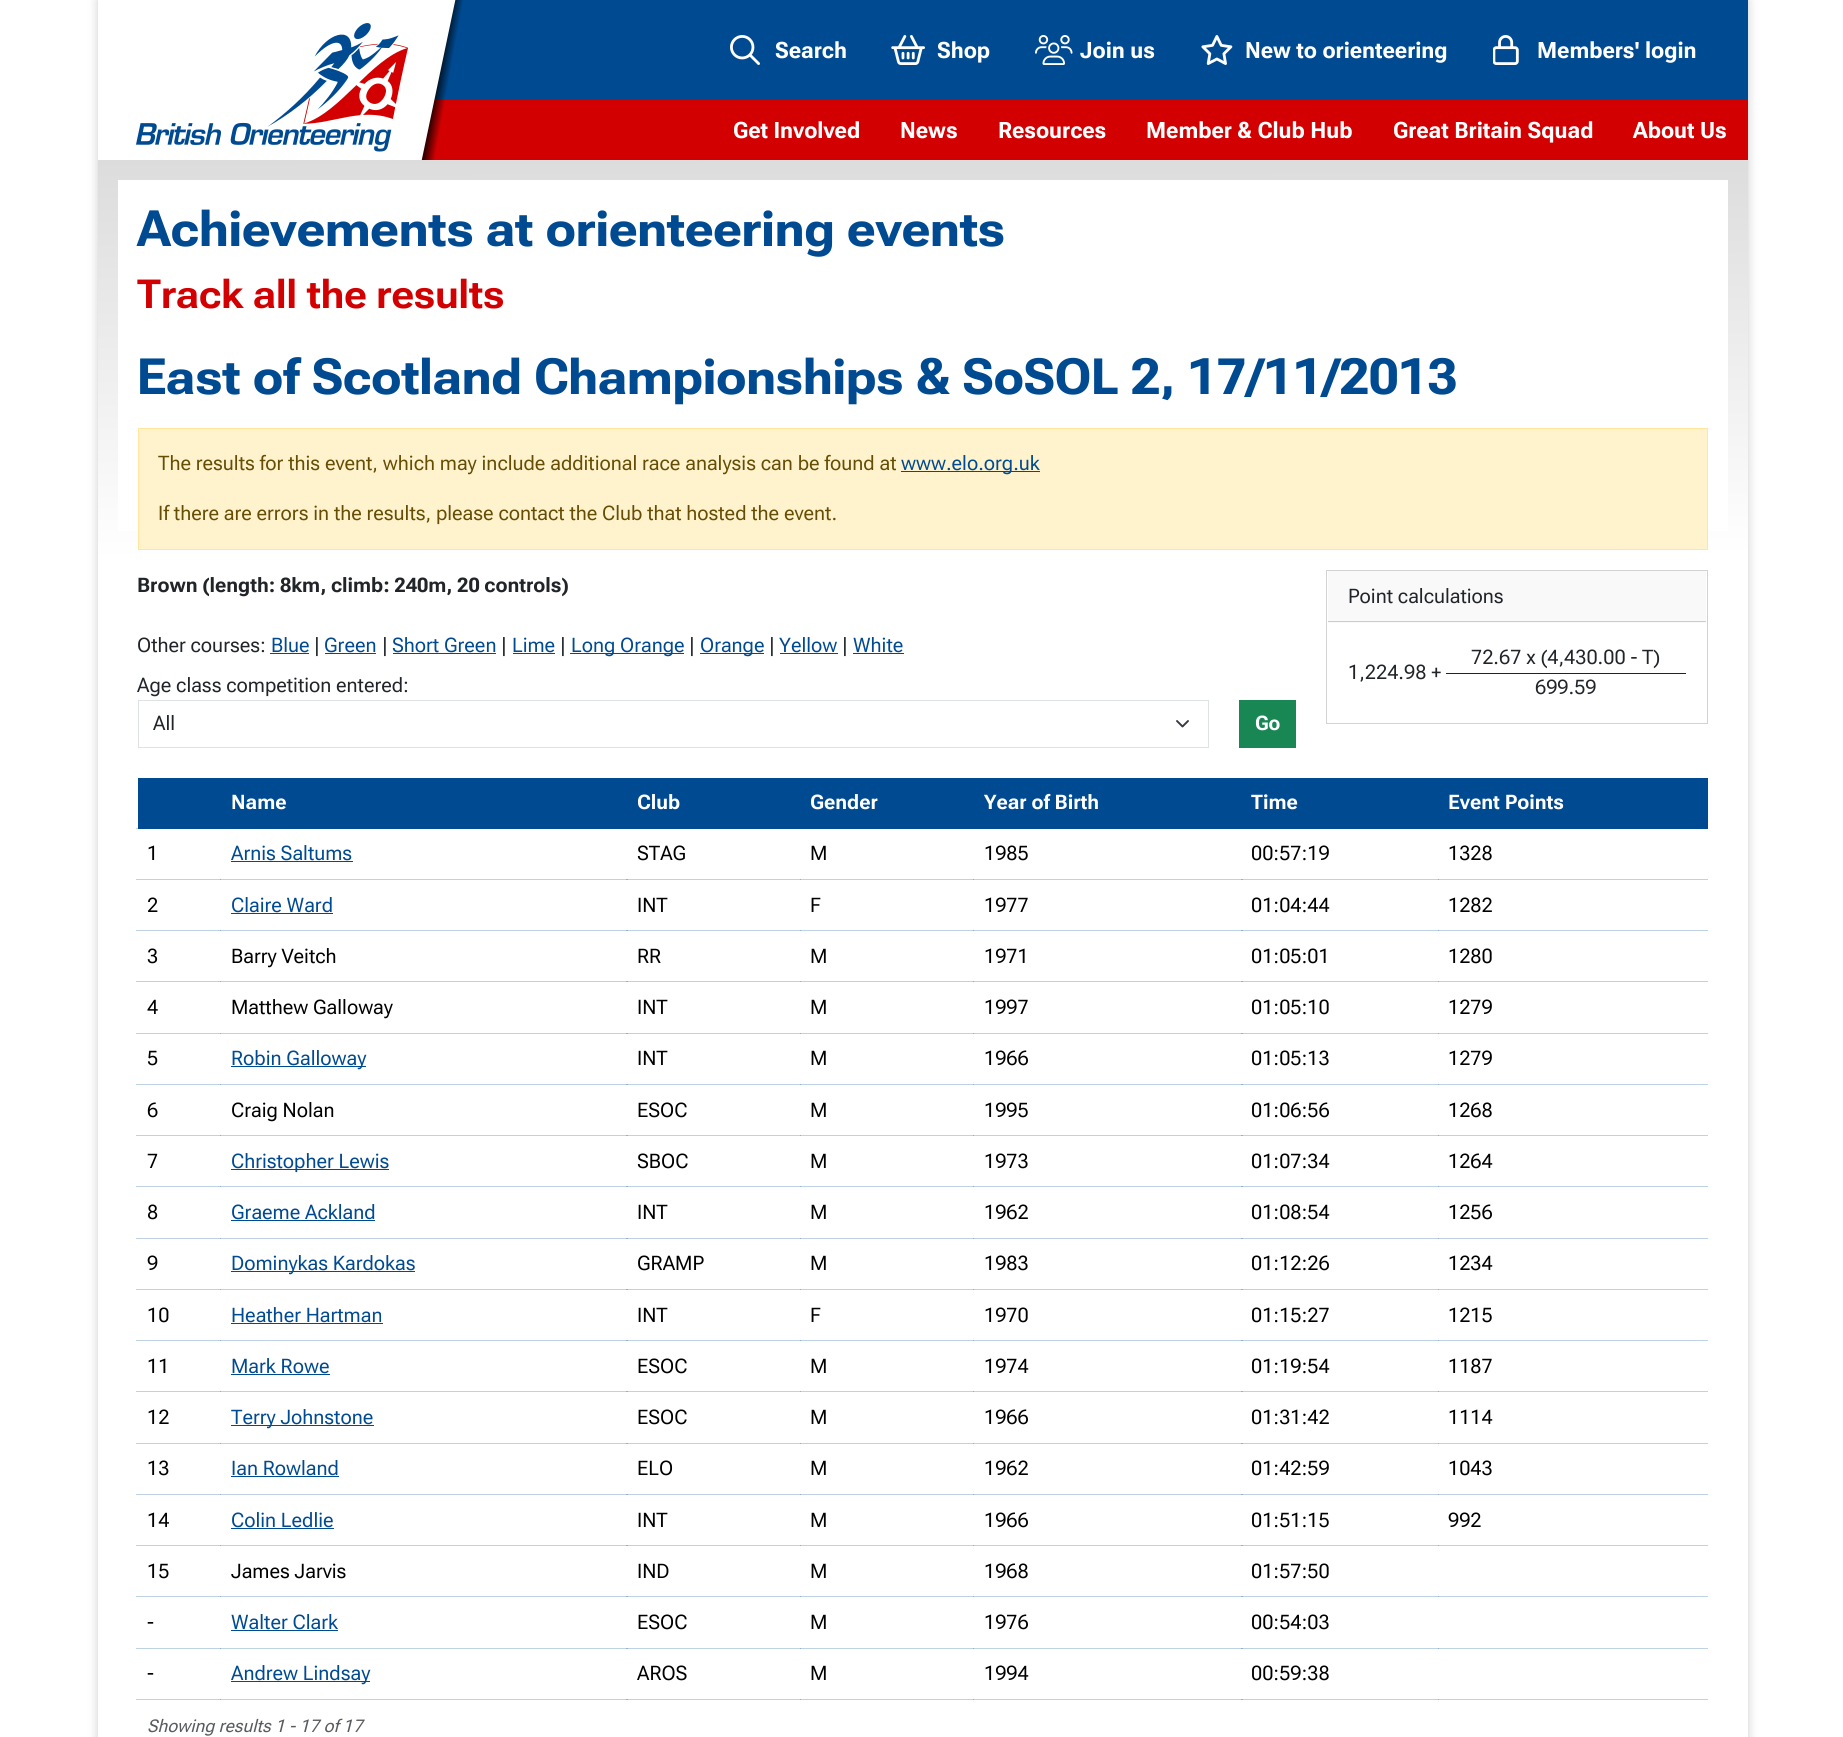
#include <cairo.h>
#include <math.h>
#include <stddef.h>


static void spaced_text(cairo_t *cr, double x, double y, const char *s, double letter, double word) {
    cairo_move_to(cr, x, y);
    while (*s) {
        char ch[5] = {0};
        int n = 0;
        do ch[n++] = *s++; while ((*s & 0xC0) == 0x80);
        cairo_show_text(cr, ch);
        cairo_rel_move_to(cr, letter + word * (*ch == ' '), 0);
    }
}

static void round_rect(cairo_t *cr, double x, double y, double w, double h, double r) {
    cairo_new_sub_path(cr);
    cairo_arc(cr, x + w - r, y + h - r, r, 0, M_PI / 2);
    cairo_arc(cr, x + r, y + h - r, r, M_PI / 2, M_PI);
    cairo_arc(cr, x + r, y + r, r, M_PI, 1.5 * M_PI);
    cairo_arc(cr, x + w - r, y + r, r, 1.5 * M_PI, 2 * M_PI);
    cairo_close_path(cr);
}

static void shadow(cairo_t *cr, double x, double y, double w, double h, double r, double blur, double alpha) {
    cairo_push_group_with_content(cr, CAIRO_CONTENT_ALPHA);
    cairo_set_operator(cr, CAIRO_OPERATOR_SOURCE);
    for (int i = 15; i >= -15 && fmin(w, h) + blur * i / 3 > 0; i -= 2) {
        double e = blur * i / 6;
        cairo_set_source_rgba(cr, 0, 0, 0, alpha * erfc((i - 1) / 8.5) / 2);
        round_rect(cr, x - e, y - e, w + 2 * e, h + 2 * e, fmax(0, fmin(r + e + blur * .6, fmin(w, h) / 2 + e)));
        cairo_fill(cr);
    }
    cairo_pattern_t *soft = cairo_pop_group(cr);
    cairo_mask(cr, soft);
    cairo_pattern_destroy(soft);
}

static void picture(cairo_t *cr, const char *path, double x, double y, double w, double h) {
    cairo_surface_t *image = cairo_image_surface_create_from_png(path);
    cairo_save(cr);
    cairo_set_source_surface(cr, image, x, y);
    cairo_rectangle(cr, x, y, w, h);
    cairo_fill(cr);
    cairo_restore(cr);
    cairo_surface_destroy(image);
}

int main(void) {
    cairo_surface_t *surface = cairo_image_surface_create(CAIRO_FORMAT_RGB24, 1843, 1737);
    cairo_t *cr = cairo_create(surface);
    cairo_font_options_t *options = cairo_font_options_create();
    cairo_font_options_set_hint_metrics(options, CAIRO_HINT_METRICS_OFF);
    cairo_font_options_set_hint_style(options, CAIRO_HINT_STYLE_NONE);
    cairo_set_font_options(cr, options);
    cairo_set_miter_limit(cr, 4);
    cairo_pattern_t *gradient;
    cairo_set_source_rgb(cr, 1, 1, 1);
    cairo_paint(cr);
    cairo_save(cr);
    cairo_set_fill_rule(cr, CAIRO_FILL_RULE_EVEN_ODD);
    cairo_new_path(cr);
    cairo_move_to(cr, 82, 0);
    cairo_line_to(cr, 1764, 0);
    cairo_line_to(cr, 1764, 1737);
    cairo_line_to(cr, 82, 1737);
    cairo_close_path(cr);
    cairo_move_to(cr, 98, 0);
    cairo_line_to(cr, 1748, 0);
    cairo_line_to(cr, 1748, 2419);
    cairo_line_to(cr, 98, 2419);
    cairo_close_path(cr);
    cairo_clip(cr);
    cairo_set_source_rgb(cr, 0, 0, 0);
    shadow(cr, 98, 0, 1650, 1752, 0, 5, 0.2);
    cairo_restore(cr);
    cairo_set_source_rgb(cr, 0, 0.29, 0.569);
    cairo_rectangle(cr, 434, 0, 1314, 100);
    cairo_fill(cr);
    cairo_set_source_rgb(cr, 0.824, 0, 0.004);
    cairo_rectangle(cr, 421, 100, 1327, 60);
    cairo_fill(cr);
    picture(cr, "img1.png", 98, 0, 365, 160);
    picture(cr, "img2.png", 730, 35, 30, 30);
    cairo_select_font_face(cr, "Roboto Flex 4", CAIRO_FONT_SLANT_NORMAL, CAIRO_FONT_WEIGHT_BOLD);
    cairo_set_font_size(cr, 22.5);
    cairo_set_source_rgb(cr, 1, 1, 1);
    cairo_move_to(cr, 775, 58);
    cairo_show_text(cr, "Search");
    picture(cr, "img3.png", 891, 35, 34, 30);
    cairo_move_to(cr, 937, 58);
    cairo_show_text(cr, "Shop");
    picture(cr, "img4.png", 1035, 35, 38, 30);
    cairo_move_to(cr, 1080, 58);
    cairo_show_text(cr, "Join us");
    picture(cr, "img5.png", 1201, 35, 32, 30);
    cairo_move_to(cr, 1245, 58);
    cairo_show_text(cr, "New to orienteering");
    picture(cr, "img6.png", 1493, 35, 26, 30);
    cairo_move_to(cr, 1537, 58);
    cairo_show_text(cr, "Members' login");
    cairo_move_to(cr, 733, 138);
    cairo_show_text(cr, "Get Involved");
    cairo_move_to(cr, 900, 138);
    cairo_show_text(cr, "News");
    cairo_move_to(cr, 998, 138);
    cairo_show_text(cr, "Resources");
    cairo_move_to(cr, 1146, 138);
    cairo_show_text(cr, "Member & Club Hub");
    cairo_move_to(cr, 1393, 138);
    cairo_show_text(cr, "Great Britain Squad");
    cairo_move_to(cr, 1633, 138);
    cairo_show_text(cr, "About Us");
    gradient = cairo_pattern_create_linear(107, 160, 108, 560);
    cairo_pattern_add_color_stop_rgba(gradient, 0, 0.863, 0.863, 0.863, 1);
    cairo_pattern_add_color_stop_rgba(gradient, 1, 1, 1, 1, 1);
    cairo_set_source(cr, gradient);
    cairo_pattern_destroy(gradient);
    cairo_rectangle(cr, 98, 160, 1650, 400);
    cairo_fill(cr);
    cairo_set_source_rgb(cr, 1, 1, 1);
    cairo_rectangle(cr, 118, 180, 1610, 351);
    cairo_fill(cr);
    cairo_select_font_face(cr, "Roboto Flex", CAIRO_FONT_SLANT_NORMAL, CAIRO_FONT_WEIGHT_BOLD);
    cairo_set_font_size(cr, 50);
    cairo_set_source_rgb(cr, 0, 0.29, 0.569);
    cairo_move_to(cr, 137, 246);
    cairo_show_text(cr, "Achievements at orienteering events");
    cairo_select_font_face(cr, "Roboto Flex SemiBold", CAIRO_FONT_SLANT_NORMAL, CAIRO_FONT_WEIGHT_NORMAL);
    cairo_set_font_size(cr, 40);
    cairo_set_source_rgb(cr, 0.824, 0, 0.004);
    cairo_move_to(cr, 137, 308);
    cairo_show_text(cr, "Track all the results");
    cairo_set_source_rgb(cr, 0.749, 0.824, 0.894);
    cairo_rectangle(cr, 136, 828, 2, 1);
    cairo_fill(cr);
    cairo_rectangle(cr, 136, 879, 1572, 1);
    cairo_fill(cr);
    cairo_set_source_rgb(cr, 0.561, 0.69, 0.812);
    cairo_rectangle(cr, 220, 879, 1, 1);
    cairo_fill(cr);
    cairo_rectangle(cr, 626, 879, 2, 1);
    cairo_fill(cr);
    cairo_rectangle(cr, 800, 879, 1, 1);
    cairo_fill(cr);
    cairo_rectangle(cr, 973, 879, 1, 1);
    cairo_fill(cr);
    cairo_rectangle(cr, 1241, 879, 2, 1);
    cairo_fill(cr);
    cairo_set_source_rgb(cr, 0.749, 0.824, 0.894);
    cairo_rectangle(cr, 136, 930, 1572, 1);
    cairo_fill(cr);
    cairo_set_source_rgb(cr, 0.561, 0.69, 0.812);
    cairo_rectangle(cr, 220, 930, 1, 1);
    cairo_fill(cr);
    cairo_rectangle(cr, 626, 930, 2, 1);
    cairo_fill(cr);
    cairo_rectangle(cr, 800, 930, 1, 1);
    cairo_fill(cr);
    cairo_rectangle(cr, 973, 930, 1, 1);
    cairo_fill(cr);
    cairo_rectangle(cr, 1241, 930, 2, 1);
    cairo_fill(cr);
    cairo_set_source_rgb(cr, 0.749, 0.824, 0.894);
    cairo_rectangle(cr, 136, 981, 1572, 1);
    cairo_fill(cr);
    cairo_set_source_rgb(cr, 0.561, 0.69, 0.812);
    cairo_rectangle(cr, 220, 981, 1, 1);
    cairo_fill(cr);
    cairo_rectangle(cr, 626, 981, 2, 1);
    cairo_fill(cr);
    cairo_rectangle(cr, 800, 981, 1, 1);
    cairo_fill(cr);
    cairo_rectangle(cr, 973, 981, 1, 1);
    cairo_fill(cr);
    cairo_rectangle(cr, 1241, 981, 2, 1);
    cairo_fill(cr);
    cairo_set_source_rgb(cr, 0.749, 0.824, 0.894);
    cairo_rectangle(cr, 136, 1033, 1572, 1);
    cairo_fill(cr);
    cairo_set_source_rgb(cr, 0.561, 0.69, 0.812);
    cairo_rectangle(cr, 220, 1033, 1, 1);
    cairo_fill(cr);
    cairo_rectangle(cr, 626, 1033, 2, 1);
    cairo_fill(cr);
    cairo_rectangle(cr, 800, 1033, 1, 1);
    cairo_fill(cr);
    cairo_rectangle(cr, 973, 1033, 1, 1);
    cairo_fill(cr);
    cairo_rectangle(cr, 1241, 1033, 2, 1);
    cairo_fill(cr);
    cairo_set_source_rgb(cr, 0.749, 0.824, 0.894);
    cairo_rectangle(cr, 136, 1084, 1572, 1);
    cairo_fill(cr);
    cairo_set_source_rgb(cr, 0.561, 0.69, 0.812);
    cairo_rectangle(cr, 220, 1084, 1, 1);
    cairo_fill(cr);
    cairo_rectangle(cr, 626, 1084, 2, 1);
    cairo_fill(cr);
    cairo_rectangle(cr, 800, 1084, 1, 1);
    cairo_fill(cr);
    cairo_rectangle(cr, 973, 1084, 1, 1);
    cairo_fill(cr);
    cairo_rectangle(cr, 1241, 1084, 2, 1);
    cairo_fill(cr);
    cairo_set_source_rgb(cr, 0.749, 0.824, 0.894);
    cairo_rectangle(cr, 136, 1135, 1572, 1);
    cairo_fill(cr);
    cairo_set_source_rgb(cr, 0.561, 0.69, 0.812);
    cairo_rectangle(cr, 220, 1135, 1, 1);
    cairo_fill(cr);
    cairo_rectangle(cr, 626, 1135, 2, 1);
    cairo_fill(cr);
    cairo_rectangle(cr, 800, 1135, 1, 1);
    cairo_fill(cr);
    cairo_rectangle(cr, 973, 1135, 1, 1);
    cairo_fill(cr);
    cairo_rectangle(cr, 1241, 1135, 2, 1);
    cairo_fill(cr);
    cairo_set_source_rgb(cr, 0.749, 0.824, 0.894);
    cairo_rectangle(cr, 136, 1186, 1572, 1);
    cairo_fill(cr);
    cairo_set_source_rgb(cr, 0.561, 0.69, 0.812);
    cairo_rectangle(cr, 220, 1186, 1, 1);
    cairo_fill(cr);
    cairo_rectangle(cr, 626, 1186, 2, 1);
    cairo_fill(cr);
    cairo_rectangle(cr, 800, 1186, 1, 1);
    cairo_fill(cr);
    cairo_rectangle(cr, 973, 1186, 1, 1);
    cairo_fill(cr);
    cairo_rectangle(cr, 1241, 1186, 2, 1);
    cairo_fill(cr);
    cairo_set_source_rgb(cr, 0.749, 0.824, 0.894);
    cairo_rectangle(cr, 136, 1238, 1572, 1);
    cairo_fill(cr);
    cairo_set_source_rgb(cr, 0.561, 0.69, 0.812);
    cairo_rectangle(cr, 220, 1238, 1, 1);
    cairo_fill(cr);
    cairo_rectangle(cr, 626, 1238, 2, 1);
    cairo_fill(cr);
    cairo_rectangle(cr, 800, 1238, 1, 1);
    cairo_fill(cr);
    cairo_rectangle(cr, 973, 1238, 1, 1);
    cairo_fill(cr);
    cairo_rectangle(cr, 1241, 1238, 2, 1);
    cairo_fill(cr);
    cairo_set_source_rgb(cr, 0.749, 0.824, 0.894);
    cairo_rectangle(cr, 136, 1289, 1572, 1);
    cairo_fill(cr);
    cairo_set_source_rgb(cr, 0.561, 0.69, 0.812);
    cairo_rectangle(cr, 220, 1289, 1, 1);
    cairo_fill(cr);
    cairo_rectangle(cr, 626, 1289, 2, 1);
    cairo_fill(cr);
    cairo_rectangle(cr, 800, 1289, 1, 1);
    cairo_fill(cr);
    cairo_rectangle(cr, 973, 1289, 1, 1);
    cairo_fill(cr);
    cairo_rectangle(cr, 1241, 1289, 2, 1);
    cairo_fill(cr);
    cairo_set_source_rgb(cr, 0.749, 0.824, 0.894);
    cairo_rectangle(cr, 136, 1340, 1572, 1);
    cairo_fill(cr);
    cairo_set_source_rgb(cr, 0.561, 0.69, 0.812);
    cairo_rectangle(cr, 220, 1340, 1, 1);
    cairo_fill(cr);
    cairo_rectangle(cr, 626, 1340, 2, 1);
    cairo_fill(cr);
    cairo_rectangle(cr, 800, 1340, 1, 1);
    cairo_fill(cr);
    cairo_rectangle(cr, 973, 1340, 1, 1);
    cairo_fill(cr);
    cairo_rectangle(cr, 1241, 1340, 2, 1);
    cairo_fill(cr);
    cairo_set_source_rgb(cr, 0.749, 0.824, 0.894);
    cairo_rectangle(cr, 136, 1391, 1572, 1);
    cairo_fill(cr);
    cairo_set_source_rgb(cr, 0.561, 0.69, 0.812);
    cairo_rectangle(cr, 220, 1391, 1, 1);
    cairo_fill(cr);
    cairo_rectangle(cr, 626, 1391, 2, 1);
    cairo_fill(cr);
    cairo_rectangle(cr, 800, 1391, 1, 1);
    cairo_fill(cr);
    cairo_rectangle(cr, 973, 1391, 1, 1);
    cairo_fill(cr);
    cairo_rectangle(cr, 1241, 1391, 2, 1);
    cairo_fill(cr);
    cairo_set_source_rgb(cr, 0.749, 0.824, 0.894);
    cairo_rectangle(cr, 136, 1443, 1572, 1);
    cairo_fill(cr);
    cairo_set_source_rgb(cr, 0.561, 0.69, 0.812);
    cairo_rectangle(cr, 220, 1443, 1, 1);
    cairo_fill(cr);
    cairo_rectangle(cr, 626, 1443, 2, 1);
    cairo_fill(cr);
    cairo_rectangle(cr, 800, 1443, 1, 1);
    cairo_fill(cr);
    cairo_rectangle(cr, 973, 1443, 1, 1);
    cairo_fill(cr);
    cairo_rectangle(cr, 1241, 1443, 2, 1);
    cairo_fill(cr);
    cairo_set_source_rgb(cr, 0.749, 0.824, 0.894);
    cairo_rectangle(cr, 136, 1494, 1572, 1);
    cairo_fill(cr);
    cairo_set_source_rgb(cr, 0.561, 0.69, 0.812);
    cairo_rectangle(cr, 220, 1494, 1, 1);
    cairo_fill(cr);
    cairo_rectangle(cr, 626, 1494, 2, 1);
    cairo_fill(cr);
    cairo_rectangle(cr, 800, 1494, 1, 1);
    cairo_fill(cr);
    cairo_rectangle(cr, 973, 1494, 1, 1);
    cairo_fill(cr);
    cairo_rectangle(cr, 1241, 1494, 2, 1);
    cairo_fill(cr);
    cairo_set_source_rgb(cr, 0.749, 0.824, 0.894);
    cairo_rectangle(cr, 136, 1545, 1572, 1);
    cairo_fill(cr);
    cairo_set_source_rgb(cr, 0.561, 0.69, 0.812);
    cairo_rectangle(cr, 220, 1545, 1, 1);
    cairo_fill(cr);
    cairo_rectangle(cr, 626, 1545, 2, 1);
    cairo_fill(cr);
    cairo_rectangle(cr, 800, 1545, 1, 1);
    cairo_fill(cr);
    cairo_rectangle(cr, 973, 1545, 1, 1);
    cairo_fill(cr);
    cairo_rectangle(cr, 1241, 1545, 2, 1);
    cairo_fill(cr);
    cairo_set_source_rgb(cr, 0.749, 0.824, 0.894);
    cairo_rectangle(cr, 136, 1596, 1572, 1);
    cairo_fill(cr);
    cairo_set_source_rgb(cr, 0.561, 0.69, 0.812);
    cairo_rectangle(cr, 220, 1596, 1, 1);
    cairo_fill(cr);
    cairo_rectangle(cr, 626, 1596, 2, 1);
    cairo_fill(cr);
    cairo_rectangle(cr, 800, 1596, 1, 1);
    cairo_fill(cr);
    cairo_rectangle(cr, 973, 1596, 1, 1);
    cairo_fill(cr);
    cairo_rectangle(cr, 1241, 1596, 2, 1);
    cairo_fill(cr);
    cairo_set_source_rgb(cr, 0.749, 0.824, 0.894);
    cairo_rectangle(cr, 136, 1648, 1572, 1);
    cairo_fill(cr);
    cairo_set_source_rgb(cr, 0.561, 0.69, 0.812);
    cairo_rectangle(cr, 220, 1648, 1, 1);
    cairo_fill(cr);
    cairo_rectangle(cr, 626, 1648, 2, 1);
    cairo_fill(cr);
    cairo_rectangle(cr, 800, 1648, 1, 1);
    cairo_fill(cr);
    cairo_rectangle(cr, 973, 1648, 1, 1);
    cairo_fill(cr);
    cairo_rectangle(cr, 1241, 1648, 2, 1);
    cairo_fill(cr);
    cairo_set_source_rgb(cr, 0.749, 0.824, 0.894);
    cairo_rectangle(cr, 136, 1699, 1572, 1);
    cairo_fill(cr);
    cairo_set_source_rgb(cr, 0.561, 0.69, 0.812);
    cairo_rectangle(cr, 220, 1699, 1, 1);
    cairo_fill(cr);
    cairo_rectangle(cr, 626, 1699, 2, 1);
    cairo_fill(cr);
    cairo_rectangle(cr, 800, 1699, 1, 1);
    cairo_fill(cr);
    cairo_rectangle(cr, 973, 1699, 1, 1);
    cairo_fill(cr);
    cairo_rectangle(cr, 1241, 1699, 2, 1);
    cairo_fill(cr);
    cairo_select_font_face(cr, "Roboto Flex", CAIRO_FONT_SLANT_NORMAL, CAIRO_FONT_WEIGHT_BOLD);
    cairo_set_font_size(cr, 50);
    cairo_set_source_rgb(cr, 0, 0.29, 0.569);
    cairo_move_to(cr, 137, 394);
    cairo_show_text(cr, "East of Scotland Championships & SoSOL 2, 17/11/2013");
    cairo_set_source_rgb(cr, 1, 0.953, 0.804);
    cairo_rectangle(cr, 138.5, 428.5, 1569, 121);
    cairo_fill_preserve(cr);
    cairo_set_source_rgb(cr, 1, 0.902, 0.612);
    cairo_set_line_width(cr, 1);
    cairo_stroke(cr);
    cairo_select_font_face(cr, "Roboto Flex", CAIRO_FONT_SLANT_NORMAL, CAIRO_FONT_WEIGHT_NORMAL);
    cairo_set_font_size(cr, 20);
    cairo_set_source_rgb(cr, 0.4, 0.302, 0.012);
    cairo_move_to(cr, 158, 470);
    cairo_show_text(cr, "The results for this event, which may include additional race analysis can be found at");
    cairo_set_source_rgb(cr, 0, 0.29, 0.569);
    cairo_rectangle(cr, 901, 471, 139, 1);
    cairo_fill(cr);
    cairo_move_to(cr, 901, 470);
    cairo_show_text(cr, "www.elo.org.uk");
    cairo_set_source_rgb(cr, 0.4, 0.302, 0.012);
    cairo_move_to(cr, 158, 520);
    cairo_show_text(cr, "If there are errors in the results, please contact the Club that hosted the event.");
    cairo_select_font_face(cr, "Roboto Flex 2", CAIRO_FONT_SLANT_NORMAL, CAIRO_FONT_WEIGHT_BOLD);
    cairo_set_source_rgb(cr, 0.129, 0.145, 0.161);
    spaced_text(cr, 137, 592, "Brown (length: 8km, climb: 240m, 20 controls)", 0, -0.25);
    cairo_select_font_face(cr, "Roboto Flex", CAIRO_FONT_SLANT_NORMAL, CAIRO_FONT_WEIGHT_NORMAL);
    cairo_move_to(cr, 137, 652);
    cairo_show_text(cr, "Other courses:");
    cairo_set_source_rgb(cr, 0, 0.29, 0.569);
    cairo_move_to(cr, 271, 652);
    cairo_show_text(cr, "Blue");
    cairo_rectangle(cr, 270, 653, 39, 1);
    cairo_fill(cr);
    cairo_set_source_rgb(cr, 0.129, 0.145, 0.161);
    cairo_move_to(cr, 314, 652);
    cairo_show_text(cr, "|");
    cairo_set_source_rgb(cr, 0, 0.29, 0.569);
    cairo_move_to(cr, 324, 652);
    cairo_show_text(cr, "Green");
    cairo_rectangle(cr, 325, 653, 51, 1);
    cairo_fill(cr);
    cairo_set_source_rgb(cr, 0.129, 0.145, 0.161);
    cairo_move_to(cr, 382, 652);
    cairo_show_text(cr, "|");
    cairo_set_source_rgb(cr, 0, 0.29, 0.569);
    cairo_move_to(cr, 392, 652);
    cairo_show_text(cr, "Short Green");
    cairo_rectangle(cr, 393, 653, 103, 1);
    cairo_fill(cr);
    cairo_set_source_rgb(cr, 0.129, 0.145, 0.161);
    cairo_move_to(cr, 501, 652);
    cairo_show_text(cr, "|");
    cairo_set_source_rgb(cr, 0, 0.29, 0.569);
    cairo_move_to(cr, 512, 652);
    cairo_show_text(cr, "Lime");
    cairo_rectangle(cr, 513, 653, 42, 1);
    cairo_fill(cr);
    cairo_set_source_rgb(cr, 0.129, 0.145, 0.161);
    cairo_move_to(cr, 560, 652);
    cairo_show_text(cr, "|");
    cairo_set_source_rgb(cr, 0, 0.29, 0.569);
    cairo_rectangle(cr, 570, 653, 114, 1);
    cairo_fill(cr);
    cairo_move_to(cr, 571, 652);
    cairo_show_text(cr, "Long Orange");
    cairo_set_source_rgb(cr, 0.129, 0.145, 0.161);
    cairo_move_to(cr, 689, 652);
    cairo_show_text(cr, "|");
    cairo_set_source_rgb(cr, 0, 0.29, 0.569);
    cairo_rectangle(cr, 700, 653, 64, 1);
    cairo_fill(cr);
    cairo_move_to(cr, 700, 652);
    cairo_show_text(cr, "Orange");
    cairo_set_source_rgb(cr, 0.129, 0.145, 0.161);
    cairo_move_to(cr, 769, 652);
    cairo_show_text(cr, "|");
    cairo_set_source_rgb(cr, 0, 0.29, 0.569);
    cairo_move_to(cr, 779, 652);
    cairo_show_text(cr, "Yellow");
    cairo_rectangle(cr, 780, 653, 58, 1);
    cairo_fill(cr);
    cairo_set_source_rgb(cr, 0.129, 0.145, 0.161);
    cairo_move_to(cr, 842, 652);
    cairo_show_text(cr, "|");
    cairo_set_source_rgb(cr, 0, 0.29, 0.569);
    cairo_move_to(cr, 853, 652);
    cairo_show_text(cr, "White");
    cairo_rectangle(cr, 853, 653, 51, 1);
    cairo_fill(cr);
    cairo_set_source_rgb(cr, 0.129, 0.145, 0.161);
    cairo_move_to(cr, 137, 692);
    cairo_show_text(cr, "Age class competition entered:");
    cairo_new_path(cr);
    cairo_move_to(cr, 1177, 721);
    cairo_line_to(cr, 1182.5, 726.5);
    cairo_line_to(cr, 1188, 721);
    cairo_set_source_rgb(cr, 0.204, 0.227, 0.251);
    cairo_set_line_width(cr, 1.9);
    cairo_set_line_cap(cr, CAIRO_LINE_CAP_ROUND);
    cairo_set_line_join(cr, CAIRO_LINE_JOIN_ROUND);
    cairo_stroke(cr);
    cairo_rectangle(cr, 138.5, 700.5, 1070, 47);
    cairo_set_source_rgb(cr, 0.871, 0.886, 0.902);
    cairo_set_line_width(cr, 1);
    cairo_set_line_cap(cr, CAIRO_LINE_CAP_BUTT);
    cairo_set_line_join(cr, CAIRO_LINE_JOIN_MITER);
    cairo_stroke(cr);
    cairo_set_source_rgb(cr, 0.129, 0.145, 0.161);
    cairo_move_to(cr, 153, 730);
    cairo_show_text(cr, "All");
    cairo_set_source_rgb(cr, 0.098, 0.529, 0.329);
    cairo_rectangle(cr, 1239, 700, 57, 48);
    cairo_fill(cr);
    cairo_select_font_face(cr, "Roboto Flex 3", CAIRO_FONT_SLANT_NORMAL, CAIRO_FONT_WEIGHT_BOLD);
    cairo_set_source_rgb(cr, 1, 1, 1);
    cairo_move_to(cr, 1255, 730);
    cairo_show_text(cr, "Go");
    cairo_rectangle(cr, 1326.5, 570.5, 381, 153);
    cairo_set_source_rgb(cr, 0.824, 0.824, 0.824);
    cairo_stroke(cr);
    cairo_set_source_rgb(cr, 0.973, 0.973, 0.976);
    cairo_rectangle(cr, 1328, 571, 378, 52);
    cairo_fill(cr);
    cairo_set_source_rgb(cr, 0.8, 0.8, 0.804);
    cairo_rectangle(cr, 1328, 621, 378, 1);
    cairo_fill(cr);
    cairo_select_font_face(cr, "Roboto Flex", CAIRO_FONT_SLANT_NORMAL, CAIRO_FONT_WEIGHT_NORMAL);
    cairo_set_source_rgb(cr, 0.129, 0.145, 0.161);
    cairo_move_to(cr, 1348, 603);
    cairo_show_text(cr, "Point calculations");
    cairo_set_source_rgb(cr, 0.133, 0.133, 0.133);
    cairo_rectangle(cr, 1446, 673, 240, 1);
    cairo_fill(cr);
    cairo_set_source_rgb(cr, 0.129, 0.145, 0.161);
    cairo_move_to(cr, 1471, 664);
    cairo_show_text(cr, "72.67 x (4,430.00 - T)");
    cairo_move_to(cr, 1348, 679);
    cairo_show_text(cr, "1,224.98 +");
    cairo_move_to(cr, 1535, 694);
    cairo_show_text(cr, "699.59");
    cairo_set_source_rgb(cr, 0, 0.29, 0.569);
    cairo_rectangle(cr, 138, 778, 1570, 51);
    cairo_fill(cr);
    cairo_select_font_face(cr, "Roboto Flex 2", CAIRO_FONT_SLANT_NORMAL, CAIRO_FONT_WEIGHT_BOLD);
    cairo_set_source_rgb(cr, 1, 1, 1);
    cairo_move_to(cr, 231, 809);
    cairo_show_text(cr, "Name");
    cairo_move_to(cr, 637, 809);
    cairo_show_text(cr, "Club");
    cairo_move_to(cr, 810, 809);
    cairo_show_text(cr, "Gender");
    cairo_move_to(cr, 984, 809);
    cairo_show_text(cr, "Year of Birth");
    cairo_move_to(cr, 1251, 809);
    cairo_show_text(cr, "Time");
    cairo_move_to(cr, 1448, 809);
    cairo_show_text(cr, "Event Points");
    cairo_select_font_face(cr, "Roboto Flex", CAIRO_FONT_SLANT_NORMAL, CAIRO_FONT_WEIGHT_NORMAL);
    cairo_set_source_rgb(cr, 0, 0, 0);
    cairo_move_to(cr, 147, 860);
    cairo_show_text(cr, "1");
    cairo_set_source_rgb(cr, 0, 0.29, 0.569);
    cairo_move_to(cr, 231, 860);
    cairo_show_text(cr, "Arnis Saltums");
    cairo_rectangle(cr, 231, 861, 122, 1);
    cairo_fill(cr);
    cairo_set_source_rgb(cr, 0, 0, 0);
    cairo_move_to(cr, 637, 860);
    cairo_show_text(cr, "STAG");
    cairo_move_to(cr, 810, 860);
    cairo_show_text(cr, "M");
    cairo_move_to(cr, 984, 860);
    cairo_show_text(cr, "1985");
    cairo_move_to(cr, 1251, 860);
    cairo_show_text(cr, "00:57:19");
    cairo_set_source_rgb(cr, 0.561, 0.69, 0.812);
    cairo_rectangle(cr, 1438, 879, 1, 1);
    cairo_fill(cr);
    cairo_set_source_rgb(cr, 0, 0, 0);
    cairo_move_to(cr, 1448, 860);
    cairo_show_text(cr, "1328");
    cairo_move_to(cr, 147, 912);
    cairo_show_text(cr, "2");
    cairo_set_source_rgb(cr, 0, 0.29, 0.569);
    cairo_move_to(cr, 231, 912);
    cairo_show_text(cr, "Claire Ward");
    cairo_rectangle(cr, 231, 913, 102, 1);
    cairo_fill(cr);
    cairo_set_source_rgb(cr, 0, 0, 0);
    cairo_move_to(cr, 637, 912);
    cairo_show_text(cr, "INT");
    cairo_move_to(cr, 810, 912);
    cairo_show_text(cr, "F");
    cairo_move_to(cr, 984, 912);
    cairo_show_text(cr, "1977");
    cairo_move_to(cr, 1251, 912);
    cairo_show_text(cr, "01:04:44");
    cairo_set_source_rgb(cr, 0.561, 0.69, 0.812);
    cairo_rectangle(cr, 1438, 930, 1, 1);
    cairo_fill(cr);
    cairo_set_source_rgb(cr, 0, 0, 0);
    cairo_move_to(cr, 1448, 912);
    cairo_show_text(cr, "1282");
    cairo_move_to(cr, 147, 963);
    cairo_show_text(cr, "3");
    cairo_move_to(cr, 231, 963);
    cairo_show_text(cr, "Barry Veitch");
    cairo_move_to(cr, 637, 963);
    cairo_show_text(cr, "RR");
    cairo_move_to(cr, 810, 963);
    cairo_show_text(cr, "M");
    cairo_move_to(cr, 984, 963);
    cairo_show_text(cr, "1971");
    cairo_move_to(cr, 1251, 963);
    cairo_show_text(cr, "01:05:01");
    cairo_set_source_rgb(cr, 0.561, 0.69, 0.812);
    cairo_rectangle(cr, 1438, 981, 1, 1);
    cairo_fill(cr);
    cairo_set_source_rgb(cr, 0, 0, 0);
    cairo_move_to(cr, 1448, 963);
    cairo_show_text(cr, "1280");
    cairo_move_to(cr, 147, 1014);
    cairo_show_text(cr, "4");
    cairo_move_to(cr, 231, 1014);
    cairo_show_text(cr, "Matthew Galloway");
    cairo_move_to(cr, 637, 1014);
    cairo_show_text(cr, "INT");
    cairo_move_to(cr, 810, 1014);
    cairo_show_text(cr, "M");
    cairo_move_to(cr, 984, 1014);
    cairo_show_text(cr, "1997");
    cairo_move_to(cr, 1251, 1014);
    cairo_show_text(cr, "01:05:10");
    cairo_set_source_rgb(cr, 0.561, 0.69, 0.812);
    cairo_rectangle(cr, 1438, 1033, 1, 1);
    cairo_fill(cr);
    cairo_set_source_rgb(cr, 0, 0, 0);
    cairo_move_to(cr, 1448, 1014);
    cairo_show_text(cr, "1279");
    cairo_move_to(cr, 147, 1065);
    cairo_show_text(cr, "5");
    cairo_set_source_rgb(cr, 0, 0.29, 0.569);
    cairo_rectangle(cr, 231, 1066, 135, 1);
    cairo_fill(cr);
    cairo_move_to(cr, 231, 1065);
    cairo_show_text(cr, "Robin Galloway");
    cairo_set_source_rgb(cr, 0, 0, 0);
    cairo_move_to(cr, 637, 1065);
    cairo_show_text(cr, "INT");
    cairo_move_to(cr, 810, 1065);
    cairo_show_text(cr, "M");
    cairo_move_to(cr, 984, 1065);
    cairo_show_text(cr, "1966");
    cairo_move_to(cr, 1251, 1065);
    cairo_show_text(cr, "01:05:13");
    cairo_set_source_rgb(cr, 0.561, 0.69, 0.812);
    cairo_rectangle(cr, 1438, 1084, 1, 1);
    cairo_fill(cr);
    cairo_set_source_rgb(cr, 0, 0, 0);
    cairo_move_to(cr, 1448, 1065);
    cairo_show_text(cr, "1279");
    cairo_move_to(cr, 147, 1117);
    cairo_show_text(cr, "6");
    cairo_move_to(cr, 231, 1117);
    cairo_show_text(cr, "Craig Nolan");
    cairo_move_to(cr, 637, 1117);
    cairo_show_text(cr, "ESOC");
    cairo_move_to(cr, 810, 1117);
    cairo_show_text(cr, "M");
    cairo_move_to(cr, 984, 1117);
    cairo_show_text(cr, "1995");
    cairo_move_to(cr, 1251, 1117);
    cairo_show_text(cr, "01:06:56");
    cairo_set_source_rgb(cr, 0.561, 0.69, 0.812);
    cairo_rectangle(cr, 1438, 1135, 1, 1);
    cairo_fill(cr);
    cairo_set_source_rgb(cr, 0, 0, 0);
    cairo_move_to(cr, 1448, 1117);
    cairo_show_text(cr, "1268");
    cairo_move_to(cr, 147, 1168);
    cairo_show_text(cr, "7");
    cairo_set_source_rgb(cr, 0, 0.29, 0.569);
    cairo_rectangle(cr, 231, 1169, 158, 1);
    cairo_fill(cr);
    cairo_move_to(cr, 231, 1168);
    cairo_show_text(cr, "Christopher Lewis");
    cairo_set_source_rgb(cr, 0, 0, 0);
    cairo_move_to(cr, 637, 1168);
    cairo_show_text(cr, "SBOC");
    cairo_move_to(cr, 810, 1168);
    cairo_show_text(cr, "M");
    cairo_move_to(cr, 984, 1168);
    cairo_show_text(cr, "1973");
    cairo_move_to(cr, 1251, 1168);
    cairo_show_text(cr, "01:07:34");
    cairo_set_source_rgb(cr, 0.561, 0.69, 0.812);
    cairo_rectangle(cr, 1438, 1186, 1, 1);
    cairo_fill(cr);
    cairo_set_source_rgb(cr, 0, 0, 0);
    cairo_move_to(cr, 1448, 1168);
    cairo_show_text(cr, "1264");
    cairo_move_to(cr, 147, 1219);
    cairo_show_text(cr, "8");
    cairo_set_source_rgb(cr, 0, 0.29, 0.569);
    cairo_move_to(cr, 231, 1219);
    cairo_show_text(cr, "Graeme Ackland");
    cairo_rectangle(cr, 231, 1220, 144, 1);
    cairo_fill(cr);
    cairo_set_source_rgb(cr, 0, 0, 0);
    cairo_move_to(cr, 637, 1219);
    cairo_show_text(cr, "INT");
    cairo_move_to(cr, 810, 1219);
    cairo_show_text(cr, "M");
    cairo_move_to(cr, 984, 1219);
    cairo_show_text(cr, "1962");
    cairo_move_to(cr, 1251, 1219);
    cairo_show_text(cr, "01:08:54");
    cairo_set_source_rgb(cr, 0.561, 0.69, 0.812);
    cairo_rectangle(cr, 1438, 1238, 1, 1);
    cairo_fill(cr);
    cairo_set_source_rgb(cr, 0, 0, 0);
    cairo_move_to(cr, 1448, 1219);
    cairo_show_text(cr, "1256");
    cairo_move_to(cr, 147, 1270);
    cairo_show_text(cr, "9");
    cairo_set_source_rgb(cr, 0, 0.29, 0.569);
    cairo_rectangle(cr, 231, 1271, 184, 1);
    cairo_fill(cr);
    cairo_move_to(cr, 231, 1270);
    cairo_show_text(cr, "Dominykas Kardokas");
    cairo_set_source_rgb(cr, 0, 0, 0);
    cairo_move_to(cr, 637, 1270);
    cairo_show_text(cr, "GRAMP");
    cairo_move_to(cr, 810, 1270);
    cairo_show_text(cr, "M");
    cairo_move_to(cr, 984, 1270);
    cairo_show_text(cr, "1983");
    cairo_move_to(cr, 1251, 1270);
    cairo_show_text(cr, "01:12:26");
    cairo_set_source_rgb(cr, 0.561, 0.69, 0.812);
    cairo_rectangle(cr, 1438, 1289, 1, 1);
    cairo_fill(cr);
    cairo_set_source_rgb(cr, 0, 0, 0);
    cairo_move_to(cr, 1448, 1270);
    cairo_show_text(cr, "1234");
    cairo_move_to(cr, 147, 1322);
    cairo_show_text(cr, "10");
    cairo_set_source_rgb(cr, 0, 0.29, 0.569);
    cairo_move_to(cr, 231, 1322);
    cairo_show_text(cr, "Heather Hartman");
    cairo_rectangle(cr, 231, 1323, 152, 1);
    cairo_fill(cr);
    cairo_set_source_rgb(cr, 0, 0, 0);
    cairo_move_to(cr, 637, 1322);
    cairo_show_text(cr, "INT");
    cairo_move_to(cr, 810, 1322);
    cairo_show_text(cr, "F");
    cairo_move_to(cr, 984, 1322);
    cairo_show_text(cr, "1970");
    cairo_move_to(cr, 1251, 1322);
    cairo_show_text(cr, "01:15:27");
    cairo_set_source_rgb(cr, 0.561, 0.69, 0.812);
    cairo_rectangle(cr, 1438, 1340, 1, 1);
    cairo_fill(cr);
    cairo_set_source_rgb(cr, 0, 0, 0);
    cairo_move_to(cr, 1448, 1322);
    cairo_show_text(cr, "1215");
    cairo_move_to(cr, 147, 1373);
    cairo_show_text(cr, "11");
    cairo_set_source_rgb(cr, 0, 0.29, 0.569);
    cairo_move_to(cr, 231, 1373);
    cairo_show_text(cr, "Mark Rowe");
    cairo_rectangle(cr, 231, 1374, 99, 1);
    cairo_fill(cr);
    cairo_set_source_rgb(cr, 0, 0, 0);
    cairo_move_to(cr, 637, 1373);
    cairo_show_text(cr, "ESOC");
    cairo_move_to(cr, 810, 1373);
    cairo_show_text(cr, "M");
    cairo_move_to(cr, 984, 1373);
    cairo_show_text(cr, "1974");
    cairo_move_to(cr, 1251, 1373);
    cairo_show_text(cr, "01:19:54");
    cairo_set_source_rgb(cr, 0.561, 0.69, 0.812);
    cairo_rectangle(cr, 1438, 1391, 1, 1);
    cairo_fill(cr);
    cairo_set_source_rgb(cr, 0, 0, 0);
    cairo_move_to(cr, 1448, 1373);
    cairo_show_text(cr, "1187");
    cairo_move_to(cr, 147, 1424);
    cairo_show_text(cr, "12");
    cairo_set_source_rgb(cr, 0, 0.29, 0.569);
    cairo_rectangle(cr, 231, 1425, 143, 1);
    cairo_fill(cr);
    cairo_move_to(cr, 231, 1424);
    cairo_show_text(cr, "Terry Johnstone");
    cairo_set_source_rgb(cr, 0, 0, 0);
    cairo_move_to(cr, 637, 1424);
    cairo_show_text(cr, "ESOC");
    cairo_move_to(cr, 810, 1424);
    cairo_show_text(cr, "M");
    cairo_move_to(cr, 984, 1424);
    cairo_show_text(cr, "1966");
    cairo_move_to(cr, 1251, 1424);
    cairo_show_text(cr, "01:31:42");
    cairo_set_source_rgb(cr, 0.561, 0.69, 0.812);
    cairo_rectangle(cr, 1438, 1443, 1, 1);
    cairo_fill(cr);
    cairo_set_source_rgb(cr, 0, 0, 0);
    cairo_move_to(cr, 1448, 1424);
    cairo_show_text(cr, "1114");
    cairo_move_to(cr, 147, 1475);
    cairo_show_text(cr, "13");
    cairo_set_source_rgb(cr, 0, 0.29, 0.569);
    cairo_move_to(cr, 231, 1475);
    cairo_show_text(cr, "Ian Rowland");
    cairo_rectangle(cr, 231, 1476, 108, 1);
    cairo_fill(cr);
    cairo_set_source_rgb(cr, 0, 0, 0);
    cairo_move_to(cr, 637, 1475);
    cairo_show_text(cr, "ELO");
    cairo_move_to(cr, 810, 1475);
    cairo_show_text(cr, "M");
    cairo_move_to(cr, 984, 1475);
    cairo_show_text(cr, "1962");
    cairo_move_to(cr, 1251, 1475);
    cairo_show_text(cr, "01:42:59");
    cairo_set_source_rgb(cr, 0.561, 0.69, 0.812);
    cairo_rectangle(cr, 1438, 1494, 1, 1);
    cairo_fill(cr);
    cairo_set_source_rgb(cr, 0, 0, 0);
    cairo_move_to(cr, 1448, 1475);
    cairo_show_text(cr, "1043");
    cairo_move_to(cr, 147, 1527);
    cairo_show_text(cr, "14");
    cairo_set_source_rgb(cr, 0, 0.29, 0.569);
    cairo_move_to(cr, 231, 1527);
    cairo_show_text(cr, "Colin Ledlie");
    cairo_rectangle(cr, 231, 1528, 103, 1);
    cairo_fill(cr);
    cairo_set_source_rgb(cr, 0, 0, 0);
    cairo_move_to(cr, 637, 1527);
    cairo_show_text(cr, "INT");
    cairo_move_to(cr, 810, 1527);
    cairo_show_text(cr, "M");
    cairo_move_to(cr, 984, 1527);
    cairo_show_text(cr, "1966");
    cairo_move_to(cr, 1251, 1527);
    cairo_show_text(cr, "01:51:15");
    cairo_set_source_rgb(cr, 0.561, 0.69, 0.812);
    cairo_rectangle(cr, 1438, 1545, 1, 1);
    cairo_fill(cr);
    cairo_set_source_rgb(cr, 0, 0, 0);
    cairo_move_to(cr, 1448, 1527);
    cairo_show_text(cr, "992");
    cairo_move_to(cr, 147, 1578);
    cairo_show_text(cr, "15");
    cairo_move_to(cr, 231, 1578);
    cairo_show_text(cr, "James Jarvis");
    cairo_move_to(cr, 637, 1578);
    cairo_show_text(cr, "IND");
    cairo_move_to(cr, 810, 1578);
    cairo_show_text(cr, "M");
    cairo_move_to(cr, 984, 1578);
    cairo_show_text(cr, "1968");
    cairo_move_to(cr, 1251, 1578);
    cairo_show_text(cr, "01:57:50");
    cairo_set_source_rgb(cr, 0.561, 0.69, 0.812);
    cairo_rectangle(cr, 1438, 1596, 1, 1);
    cairo_fill(cr);
    cairo_set_source_rgb(cr, 0, 0, 0);
    cairo_move_to(cr, 147, 1629);
    cairo_show_text(cr, "-");
    cairo_set_source_rgb(cr, 0, 0.29, 0.569);
    cairo_move_to(cr, 231, 1629);
    cairo_show_text(cr, "Walter Clark");
    cairo_rectangle(cr, 231, 1630, 107, 1);
    cairo_fill(cr);
    cairo_set_source_rgb(cr, 0, 0, 0);
    cairo_move_to(cr, 637, 1629);
    cairo_show_text(cr, "ESOC");
    cairo_move_to(cr, 810, 1629);
    cairo_show_text(cr, "M");
    cairo_move_to(cr, 984, 1629);
    cairo_show_text(cr, "1976");
    cairo_move_to(cr, 1251, 1629);
    cairo_show_text(cr, "00:54:03");
    cairo_set_source_rgb(cr, 0.561, 0.69, 0.812);
    cairo_rectangle(cr, 1438, 1648, 1, 1);
    cairo_fill(cr);
    cairo_set_source_rgb(cr, 0, 0, 0);
    cairo_move_to(cr, 147, 1680);
    cairo_show_text(cr, "-");
    cairo_set_source_rgb(cr, 0, 0.29, 0.569);
    cairo_rectangle(cr, 231, 1681, 139, 1);
    cairo_fill(cr);
    cairo_move_to(cr, 231, 1680);
    cairo_show_text(cr, "Andrew Lindsay");
    cairo_set_source_rgb(cr, 0, 0, 0);
    cairo_move_to(cr, 637, 1680);
    cairo_show_text(cr, "AROS");
    cairo_move_to(cr, 810, 1680);
    cairo_show_text(cr, "M");
    cairo_move_to(cr, 984, 1680);
    cairo_show_text(cr, "1994");
    cairo_move_to(cr, 1251, 1680);
    cairo_show_text(cr, "00:59:38");
    cairo_set_source_rgb(cr, 0.561, 0.69, 0.812);
    cairo_rectangle(cr, 1438, 1699, 1, 1);
    cairo_fill(cr);
    cairo_select_font_face(cr, "Roboto Flex", CAIRO_FONT_SLANT_ITALIC, CAIRO_FONT_WEIGHT_NORMAL);
    cairo_set_font_size(cr, 17.5);
    cairo_set_source_rgb(cr, 0.349, 0.361, 0.373);
    cairo_move_to(cr, 147, 1732);
    cairo_show_text(cr, "Showing results 1 - 17 of 17");
    cairo_surface_write_to_png(surface, "page.png");
    cairo_font_options_destroy(options);
    cairo_destroy(cr);
    cairo_surface_destroy(surface);
    return 0;
}
